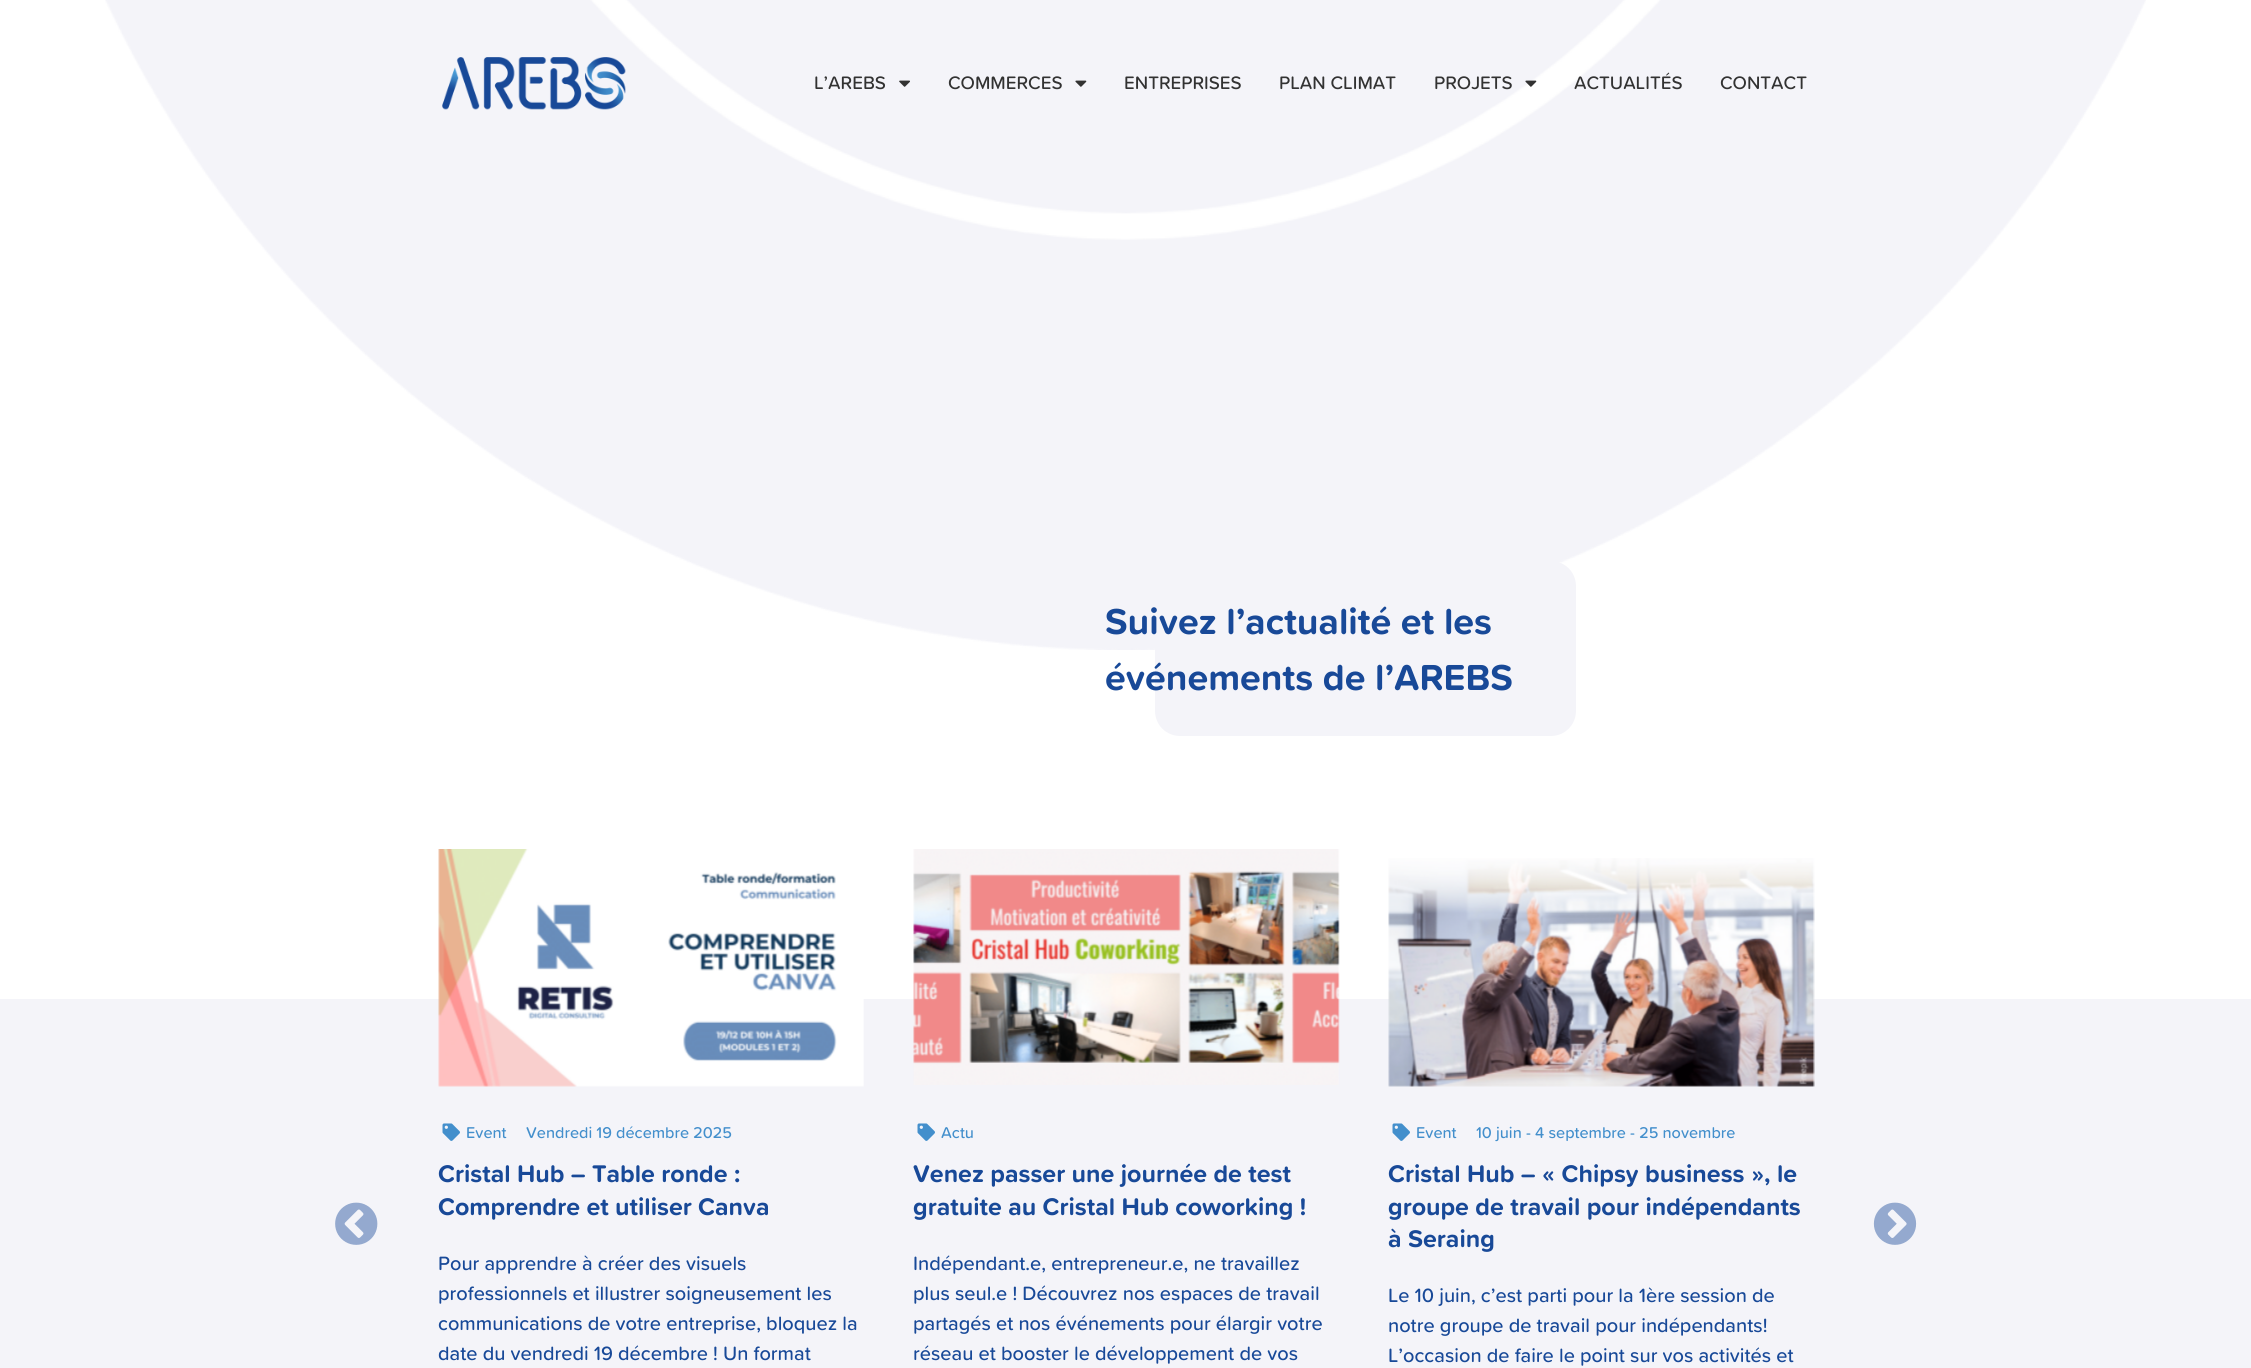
#include <cairo.h>
#include <math.h>
#include <stddef.h>


static void round_rect(cairo_t *cr, double x, double y, double w, double h, double r) {
    cairo_new_sub_path(cr);
    cairo_arc(cr, x + w - r, y + h - r, r, 0, M_PI / 2);
    cairo_arc(cr, x + r, y + h - r, r, M_PI / 2, M_PI);
    cairo_arc(cr, x + r, y + r, r, M_PI, 1.5 * M_PI);
    cairo_arc(cr, x + w - r, y + r, r, 1.5 * M_PI, 2 * M_PI);
    cairo_close_path(cr);
}

static void picture(cairo_t *cr, const char *path, double x, double y, double w, double h) {
    cairo_surface_t *image = cairo_image_surface_create_from_png(path);
    cairo_save(cr);
    cairo_set_source_surface(cr, image, x, y);
    cairo_rectangle(cr, x, y, w, h);
    cairo_fill(cr);
    cairo_restore(cr);
    cairo_surface_destroy(image);
}

int main(void) {
    cairo_surface_t *surface = cairo_image_surface_create(CAIRO_FORMAT_RGB24, 2251, 1368);
    cairo_t *cr = cairo_create(surface);
    cairo_font_options_t *options = cairo_font_options_create();
    cairo_font_options_set_hint_metrics(options, CAIRO_HINT_METRICS_OFF);
    cairo_font_options_set_hint_style(options, CAIRO_HINT_STYLE_NONE);
    cairo_set_font_options(cr, options);
    cairo_set_miter_limit(cr, 4);
    cairo_set_source_rgb(cr, 1, 1, 1);
    cairo_paint(cr);
    picture(cr, "img1.png", 105, 0, 2041, 650);
    picture(cr, "img2.png", 442, 57, 184, 53);
    cairo_select_font_face(cr, "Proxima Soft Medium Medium", CAIRO_FONT_SLANT_NORMAL, CAIRO_FONT_WEIGHT_NORMAL);
    cairo_set_font_size(cr, 18.75);
    cairo_set_source_rgb(cr, 0.196, 0.196, 0.196);
    cairo_move_to(cr, 814, 89);
    cairo_show_text(cr, "L’AREBS");
    picture(cr, "img3.png", 899, 80, 11, 7);
    cairo_move_to(cr, 948, 89);
    cairo_show_text(cr, "COMMERCES");
    picture(cr, "img4.png", 1075, 80, 12, 7);
    cairo_move_to(cr, 1124, 89);
    cairo_show_text(cr, "ENTREPRISES");
    cairo_move_to(cr, 1279, 89);
    cairo_show_text(cr, "PLAN CLIMAT");
    cairo_move_to(cr, 1434, 89);
    cairo_show_text(cr, "PROJETS");
    picture(cr, "img5.png", 1525, 80, 12, 7);
    cairo_move_to(cr, 1574, 89);
    cairo_show_text(cr, "ACTUALITÉS");
    cairo_move_to(cr, 1720, 89);
    cairo_show_text(cr, "CONTACT");
    cairo_set_source_rgb(cr, 0.957, 0.957, 0.976);
    round_rect(cr, 1155, 561, 421, 175, 25);
    cairo_fill(cr);
    cairo_select_font_face(cr, "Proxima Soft", CAIRO_FONT_SLANT_NORMAL, CAIRO_FONT_WEIGHT_BOLD);
    cairo_set_font_size(cr, 37.5);
    cairo_set_source_rgb(cr, 0.094, 0.286, 0.596);
    cairo_move_to(cr, 1105, 634);
    cairo_show_text(cr, "Suivez l’actualité et les");
    cairo_move_to(cr, 1105, 690);
    cairo_show_text(cr, "événements de l’AREBS");
    cairo_set_source_rgb(cr, 0.957, 0.957, 0.976);
    cairo_rectangle(cr, 0, 999, 2251, 369);
    cairo_fill(cr);
    picture(cr, "img6.png", 335, 1202, 43, 43);
    picture(cr, "img7.png", 438, 849, 426, 238);
    picture(cr, "img8.png", 442, 1123, 18, 18);
    cairo_select_font_face(cr, "Proxima Soft Medium Medium", CAIRO_FONT_SLANT_NORMAL, CAIRO_FONT_WEIGHT_NORMAL);
    cairo_set_font_size(cr, 16.25);
    cairo_set_source_rgb(cr, 0.263, 0.561, 0.8);
    cairo_move_to(cr, 466, 1138);
    cairo_show_text(cr, "Event");
    cairo_move_to(cr, 526, 1138);
    cairo_show_text(cr, "Vendredi 19 décembre 2025");
    cairo_select_font_face(cr, "Proxima Soft", CAIRO_FONT_SLANT_NORMAL, CAIRO_FONT_WEIGHT_BOLD);
    cairo_set_font_size(cr, 25);
    cairo_set_source_rgb(cr, 0.094, 0.286, 0.596);
    cairo_move_to(cr, 438, 1182);
    cairo_show_text(cr, "Cristal Hub – Table ronde :");
    cairo_move_to(cr, 438, 1215);
    cairo_show_text(cr, "Comprendre et utiliser Canva");
    cairo_select_font_face(cr, "Proxima Soft Medium Medium", CAIRO_FONT_SLANT_NORMAL, CAIRO_FONT_WEIGHT_NORMAL);
    cairo_set_font_size(cr, 20);
    cairo_move_to(cr, 438, 1270);
    cairo_show_text(cr, "Pour apprendre à créer des visuels");
    cairo_move_to(cr, 438, 1300);
    cairo_show_text(cr, "professionnels et illustrer soigneusement les");
    cairo_move_to(cr, 438, 1330);
    cairo_show_text(cr, "communications de votre entreprise, bloquez la");
    cairo_move_to(cr, 438, 1360);
    cairo_show_text(cr, "date du vendredi 19 décembre ! Un format");
    picture(cr, "img9.png", 913, 849, 427, 236);
    picture(cr, "img8.png", 917, 1123, 18, 18);
    cairo_set_font_size(cr, 16.25);
    cairo_set_source_rgb(cr, 0.263, 0.561, 0.8);
    cairo_move_to(cr, 941, 1138);
    cairo_show_text(cr, "Actu");
    cairo_select_font_face(cr, "Proxima Soft", CAIRO_FONT_SLANT_NORMAL, CAIRO_FONT_WEIGHT_BOLD);
    cairo_set_font_size(cr, 25);
    cairo_set_source_rgb(cr, 0.094, 0.286, 0.596);
    cairo_move_to(cr, 913, 1182);
    cairo_show_text(cr, "Venez passer une journée de test");
    cairo_move_to(cr, 913, 1215);
    cairo_show_text(cr, "gratuite au Cristal Hub coworking !");
    cairo_select_font_face(cr, "Proxima Soft Medium Medium", CAIRO_FONT_SLANT_NORMAL, CAIRO_FONT_WEIGHT_NORMAL);
    cairo_set_font_size(cr, 20);
    cairo_move_to(cr, 913, 1270);
    cairo_show_text(cr, "Indépendant.e, entrepreneur.e, ne travaillez");
    cairo_move_to(cr, 913, 1300);
    cairo_show_text(cr, "plus seul.e ! Découvrez nos espaces de travail");
    cairo_move_to(cr, 913, 1330);
    cairo_show_text(cr, "partagés et nos événements pour élargir votre");
    cairo_move_to(cr, 913, 1360);
    cairo_show_text(cr, "réseau et booster le développement de vos");
    picture(cr, "img10.png", 1388, 858, 427, 229);
    picture(cr, "img8.png", 1392, 1123, 18, 18);
    cairo_set_font_size(cr, 16.25);
    cairo_set_source_rgb(cr, 0.263, 0.561, 0.8);
    cairo_move_to(cr, 1416, 1138);
    cairo_show_text(cr, "Event");
    cairo_move_to(cr, 1476, 1138);
    cairo_show_text(cr, "10 juin - 4 septembre - 25 novembre");
    cairo_select_font_face(cr, "Proxima Soft", CAIRO_FONT_SLANT_NORMAL, CAIRO_FONT_WEIGHT_BOLD);
    cairo_set_font_size(cr, 25);
    cairo_set_source_rgb(cr, 0.094, 0.286, 0.596);
    cairo_move_to(cr, 1388, 1182);
    cairo_show_text(cr, "Cristal Hub – « Chipsy business », le");
    cairo_move_to(cr, 1388, 1215);
    cairo_show_text(cr, "groupe de travail pour indépendants");
    cairo_move_to(cr, 1388, 1247);
    cairo_show_text(cr, "à Seraing");
    cairo_select_font_face(cr, "Proxima Soft Medium Medium", CAIRO_FONT_SLANT_NORMAL, CAIRO_FONT_WEIGHT_NORMAL);
    cairo_set_font_size(cr, 20);
    cairo_move_to(cr, 1388, 1302);
    cairo_show_text(cr, "Le 10 juin, c’est parti pour la 1ère session de");
    cairo_move_to(cr, 1388, 1332);
    cairo_show_text(cr, "notre groupe de travail pour indépendants!");
    cairo_move_to(cr, 1388, 1362);
    cairo_show_text(cr, "L’occasion de faire le point sur vos activités et");
    picture(cr, "img11.png", 1873, 1202, 44, 43);
    cairo_surface_write_to_png(surface, "page.png");
    cairo_font_options_destroy(options);
    cairo_destroy(cr);
    cairo_surface_destroy(surface);
    return 0;
}
